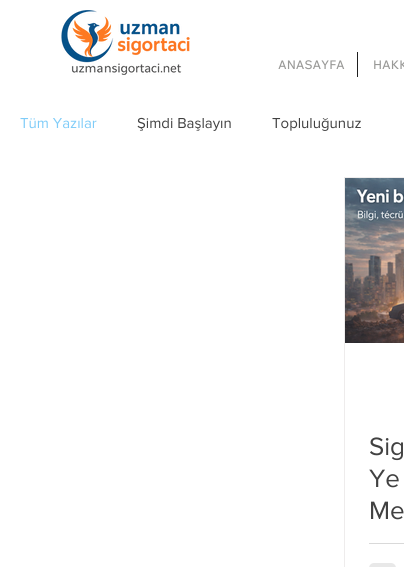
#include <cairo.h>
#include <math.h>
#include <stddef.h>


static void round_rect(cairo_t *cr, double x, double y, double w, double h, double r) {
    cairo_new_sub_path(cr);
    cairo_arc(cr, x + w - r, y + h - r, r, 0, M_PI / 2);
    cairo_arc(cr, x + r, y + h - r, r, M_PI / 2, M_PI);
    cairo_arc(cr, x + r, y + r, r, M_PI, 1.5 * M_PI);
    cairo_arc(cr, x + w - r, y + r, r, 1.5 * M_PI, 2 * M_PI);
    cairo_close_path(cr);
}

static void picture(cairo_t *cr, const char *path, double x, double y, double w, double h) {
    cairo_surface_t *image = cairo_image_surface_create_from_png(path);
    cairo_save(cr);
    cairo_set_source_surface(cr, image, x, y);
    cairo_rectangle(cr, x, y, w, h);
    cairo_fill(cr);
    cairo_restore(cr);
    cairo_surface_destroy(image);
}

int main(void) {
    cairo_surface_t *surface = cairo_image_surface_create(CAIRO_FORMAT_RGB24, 404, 567);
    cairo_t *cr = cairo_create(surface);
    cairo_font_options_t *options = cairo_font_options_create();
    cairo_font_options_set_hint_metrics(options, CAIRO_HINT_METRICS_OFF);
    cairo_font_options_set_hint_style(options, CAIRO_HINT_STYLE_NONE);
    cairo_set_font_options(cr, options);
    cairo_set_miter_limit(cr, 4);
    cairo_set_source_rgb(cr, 1, 1, 1);
    cairo_paint(cr);
    picture(cr, "img1.png", 61, 10, 129, 65);
    cairo_select_font_face(cr, "Wix Madefor Text Medium", CAIRO_FONT_SLANT_NORMAL, CAIRO_FONT_WEIGHT_NORMAL);
    cairo_set_font_size(cr, 12);
    cairo_set_source_rgb(cr, 0.6, 0.6, 0.592);
    cairo_move_to(cr, 278, 69);
    cairo_show_text(cr, "ANASAYFA");
    cairo_set_source_rgb(cr, 0.122, 0.122, 0.122);
    cairo_rectangle(cr, 357, 52, 1, 25);
    cairo_fill(cr);
    cairo_set_source_rgb(cr, 0.6, 0.6, 0.592);
    cairo_move_to(cr, 373, 69);
    cairo_show_text(cr, "HAKK");
    cairo_select_font_face(cr, "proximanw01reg", CAIRO_FONT_SLANT_NORMAL, CAIRO_FONT_WEIGHT_NORMAL);
    cairo_set_font_size(cr, 15);
    cairo_set_source_rgb(cr, 0.498, 0.8, 0.969);
    cairo_move_to(cr, 20, 128);
    cairo_show_text(cr, "Tüm Yazılar");
    cairo_set_source_rgb(cr, 0.255, 0.255, 0.255);
    cairo_move_to(cr, 137, 128);
    cairo_show_text(cr, "Şimdi Başlayın");
    cairo_move_to(cr, 272, 128);
    cairo_show_text(cr, "Topluluğunuz");
    cairo_rectangle(cr, 344.5, 177.5, 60, 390);
    cairo_set_source_rgb(cr, 0.933, 0.925, 0.925);
    cairo_set_line_width(cr, 1);
    cairo_stroke(cr);
    picture(cr, "img2.png", 345, 178, 59, 165);
    cairo_set_font_size(cr, 26);
    cairo_set_source_rgb(cr, 0.255, 0.255, 0.255);
    cairo_move_to(cr, 369, 455);
    cairo_show_text(cr, "Sig");
    cairo_move_to(cr, 369, 487);
    cairo_show_text(cr, "Ye");
    cairo_move_to(cr, 369, 519);
    cairo_show_text(cr, "Me");
    cairo_set_source_rgb(cr, 0.851, 0.851, 0.851);
    cairo_rectangle(cr, 369, 543, 35, 1);
    cairo_fill(cr);
    cairo_set_source_rgb(cr, 0.91, 0.91, 0.91);
    round_rect(cr, 369, 563, 27, 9, 5);
    cairo_fill(cr);
    cairo_surface_write_to_png(surface, "page.png");
    cairo_font_options_destroy(options);
    cairo_destroy(cr);
    cairo_surface_destroy(surface);
    return 0;
}
